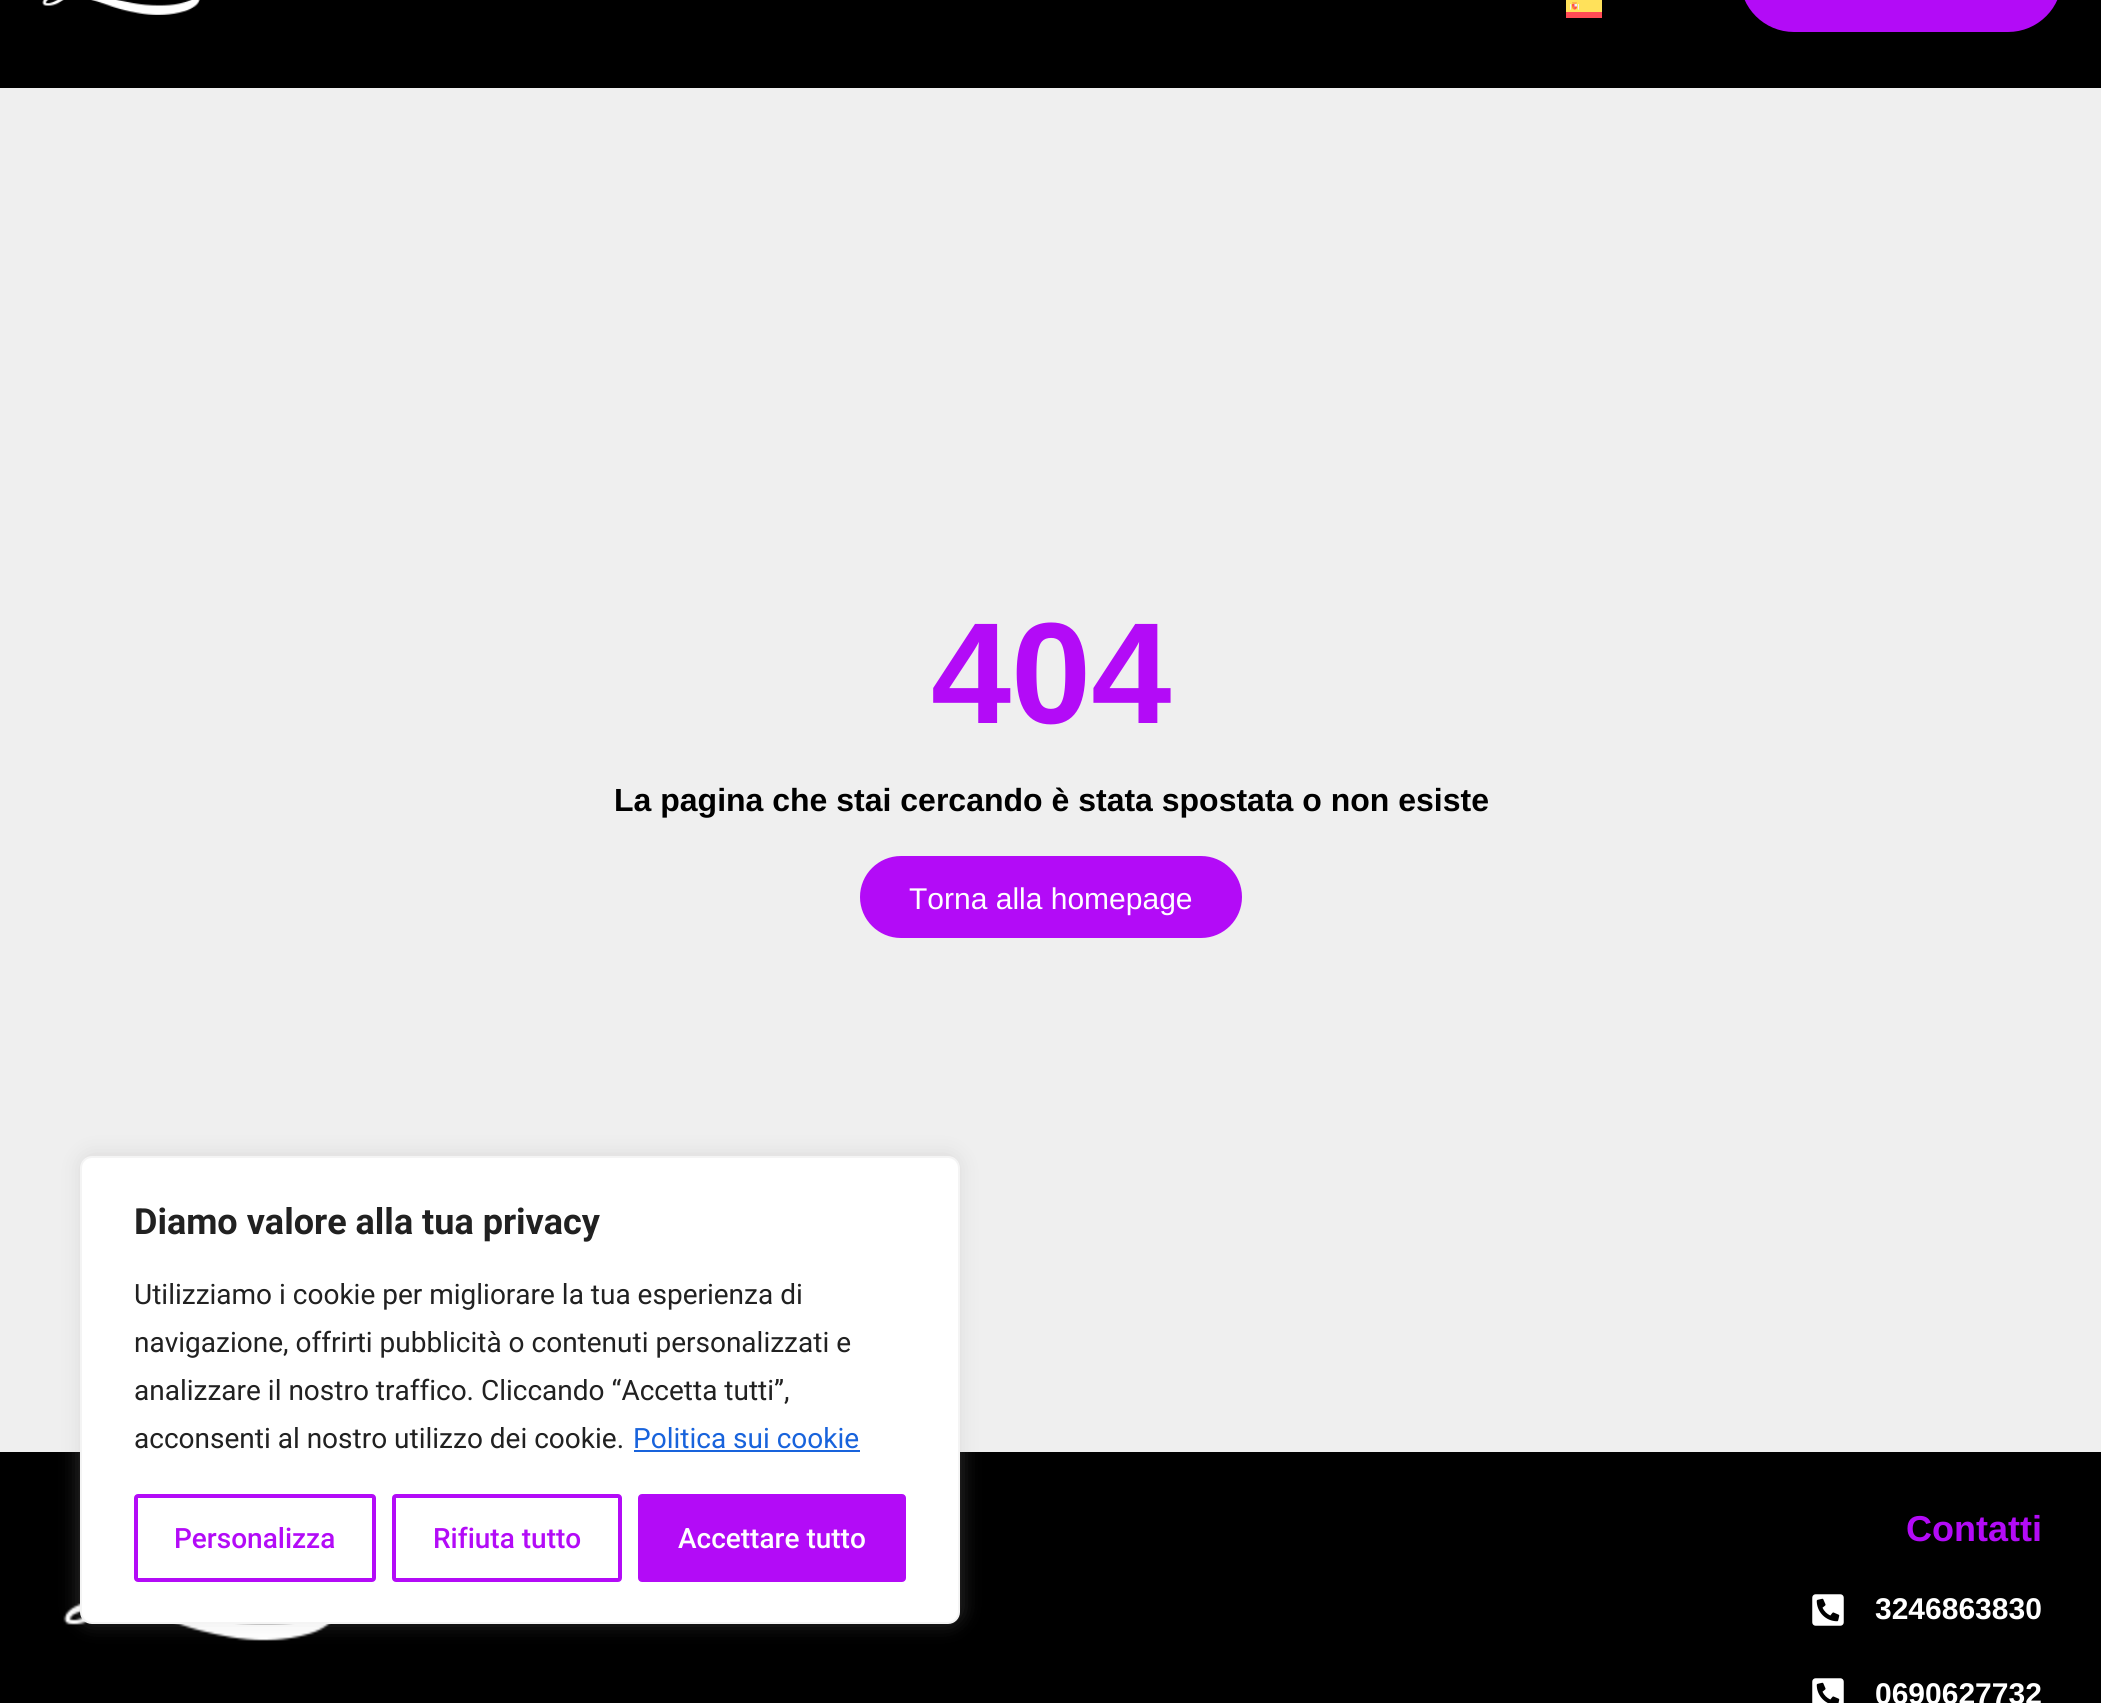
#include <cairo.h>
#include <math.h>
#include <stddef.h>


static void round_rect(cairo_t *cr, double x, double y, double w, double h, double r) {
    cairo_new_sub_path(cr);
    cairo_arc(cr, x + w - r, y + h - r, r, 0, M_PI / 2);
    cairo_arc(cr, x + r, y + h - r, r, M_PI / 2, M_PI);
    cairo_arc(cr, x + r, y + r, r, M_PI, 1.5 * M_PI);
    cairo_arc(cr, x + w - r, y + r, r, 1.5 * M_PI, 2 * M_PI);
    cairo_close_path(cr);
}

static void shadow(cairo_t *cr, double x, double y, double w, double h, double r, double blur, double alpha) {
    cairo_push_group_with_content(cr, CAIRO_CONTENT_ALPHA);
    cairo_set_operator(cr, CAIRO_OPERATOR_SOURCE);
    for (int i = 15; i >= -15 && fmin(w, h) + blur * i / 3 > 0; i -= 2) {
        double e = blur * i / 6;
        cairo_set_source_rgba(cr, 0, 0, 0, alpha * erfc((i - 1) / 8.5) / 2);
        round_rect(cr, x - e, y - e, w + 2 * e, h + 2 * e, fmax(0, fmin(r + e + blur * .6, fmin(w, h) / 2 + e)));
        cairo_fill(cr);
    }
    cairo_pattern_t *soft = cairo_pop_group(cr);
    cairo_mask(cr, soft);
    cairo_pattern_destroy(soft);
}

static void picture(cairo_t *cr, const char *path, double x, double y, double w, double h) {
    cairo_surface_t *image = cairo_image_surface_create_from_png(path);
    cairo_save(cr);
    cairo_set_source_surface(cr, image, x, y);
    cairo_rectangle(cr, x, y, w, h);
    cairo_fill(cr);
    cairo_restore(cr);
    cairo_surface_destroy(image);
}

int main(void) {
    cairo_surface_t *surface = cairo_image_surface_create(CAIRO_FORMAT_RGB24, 2101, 1703);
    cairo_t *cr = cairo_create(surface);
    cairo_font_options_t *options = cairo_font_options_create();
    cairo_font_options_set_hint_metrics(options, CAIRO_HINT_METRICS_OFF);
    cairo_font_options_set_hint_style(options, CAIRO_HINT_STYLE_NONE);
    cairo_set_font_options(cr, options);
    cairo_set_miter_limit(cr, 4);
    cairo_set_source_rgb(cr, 0.937, 0.937, 0.937);
    cairo_paint(cr);
    cairo_set_source_rgb(cr, 0, 0, 0);
    cairo_rectangle(cr, 0, 0, 2101, 88);
    cairo_fill(cr);
    picture(cr, "img1.png", 42, 0, 158, 15);
    picture(cr, "img2.png", 1566, 0, 36, 18);
    cairo_set_source_rgb(cr, 0.702, 0.043, 0.965);
    round_rect(cr, 1740, -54, 322, 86, 54);
    cairo_fill(cr);
    cairo_select_font_face(cr, "Liberation Sans", CAIRO_FONT_SLANT_NORMAL, CAIRO_FONT_WEIGHT_BOLD);
    cairo_set_font_size(cr, 144);
    cairo_move_to(cr, 931, 723);
    cairo_show_text(cr, "404");
    cairo_set_font_size(cr, 32);
    cairo_set_source_rgb(cr, 0, 0, 0);
    cairo_move_to(cr, 614, 811);
    cairo_show_text(cr, "La pagina che stai cercando è stata spostata o non esiste");
    cairo_set_source_rgb(cr, 0.702, 0.043, 0.965);
    round_rect(cr, 861, 857, 380, 80, 40);
    cairo_fill_preserve(cr);
    cairo_stroke(cr);
    cairo_select_font_face(cr, "Liberation Sans", CAIRO_FONT_SLANT_NORMAL, CAIRO_FONT_WEIGHT_NORMAL);
    cairo_set_font_size(cr, 30);
    cairo_set_source_rgb(cr, 1, 1, 1);
    cairo_move_to(cr, 909, 909);
    cairo_show_text(cr, "Torna alla homepage");
    cairo_set_source_rgb(cr, 0, 0, 0);
    cairo_rectangle(cr, 0, 1452, 2101, 251);
    cairo_fill(cr);
    picture(cr, "img3.png", 63, 1603, 268, 38);
    cairo_set_source_rgb(cr, 0.675, 0.671, 0.671);
    shadow(cr, 80, 1154, 880, 468, 12, 10, 0.3);
    cairo_set_source_rgb(cr, 1, 1, 1);
    round_rect(cr, 81, 1157, 878, 466, 11);
    cairo_fill_preserve(cr);
    cairo_set_source_rgb(cr, 0.957, 0.957, 0.957);
    cairo_stroke(cr);
    cairo_select_font_face(cr, "Roboto", CAIRO_FONT_SLANT_NORMAL, CAIRO_FONT_WEIGHT_BOLD);
    cairo_set_font_size(cr, 36);
    cairo_set_source_rgb(cr, 0.129, 0.129, 0.129);
    cairo_move_to(cr, 134, 1234);
    cairo_show_text(cr, "Diamo valore alla tua privacy");
    cairo_select_font_face(cr, "Roboto", CAIRO_FONT_SLANT_NORMAL, CAIRO_FONT_WEIGHT_NORMAL);
    cairo_set_font_size(cr, 28);
    cairo_move_to(cr, 134, 1304);
    cairo_show_text(cr, "Utilizziamo i cookie per migliorare la tua esperienza di");
    cairo_move_to(cr, 134, 1352);
    cairo_show_text(cr, "navigazione, offrirti pubblicità o contenuti personalizzati e");
    cairo_move_to(cr, 134, 1400);
    cairo_show_text(cr, "analizzare il nostro traffico. Cliccando “Accetta tutti”,");
    cairo_move_to(cr, 134, 1448);
    cairo_show_text(cr, "acconsenti al nostro utilizzo dei cookie.");
    cairo_set_source_rgb(cr, 0.094, 0.388, 0.863);
    cairo_move_to(cr, 633, 1448);
    cairo_show_text(cr, "Politica sui cookie");
    cairo_rectangle(cr, 634, 1450, 226, 2);
    cairo_fill(cr);
    round_rect(cr, 136, 1496, 238, 84, 2);
    cairo_set_source_rgb(cr, 0.702, 0.043, 0.965);
    cairo_set_line_width(cr, 4);
    cairo_stroke(cr);
    cairo_select_font_face(cr, "Roboto Medium", CAIRO_FONT_SLANT_NORMAL, CAIRO_FONT_WEIGHT_NORMAL);
    cairo_move_to(cr, 174, 1548);
    cairo_show_text(cr, "Personalizza");
    round_rect(cr, 394, 1496, 226, 84, 2);
    cairo_stroke(cr);
    cairo_move_to(cr, 433, 1548);
    cairo_show_text(cr, "Rifiuta tutto");
    round_rect(cr, 640, 1496, 264, 84, 2);
    cairo_fill_preserve(cr);
    cairo_stroke(cr);
    cairo_set_source_rgb(cr, 1, 1, 1);
    cairo_move_to(cr, 678, 1548);
    cairo_show_text(cr, "Accettare tutto");
    cairo_select_font_face(cr, "Liberation Sans", CAIRO_FONT_SLANT_NORMAL, CAIRO_FONT_WEIGHT_BOLD);
    cairo_set_font_size(cr, 36);
    cairo_set_source_rgb(cr, 0.702, 0.043, 0.965);
    cairo_move_to(cr, 1906, 1541);
    cairo_show_text(cr, "Contatti");
    picture(cr, "img4.png", 1812, 1594, 32, 32);
    cairo_set_font_size(cr, 30);
    cairo_set_source_rgb(cr, 1, 1, 1);
    cairo_move_to(cr, 1875, 1619);
    cairo_show_text(cr, "3246863830");
    picture(cr, "img5.png", 1812, 1678, 32, 25);
    cairo_move_to(cr, 1875, 1704);
    cairo_show_text(cr, "0690627732");
    cairo_surface_write_to_png(surface, "page.png");
    cairo_font_options_destroy(options);
    cairo_destroy(cr);
    cairo_surface_destroy(surface);
    return 0;
}
